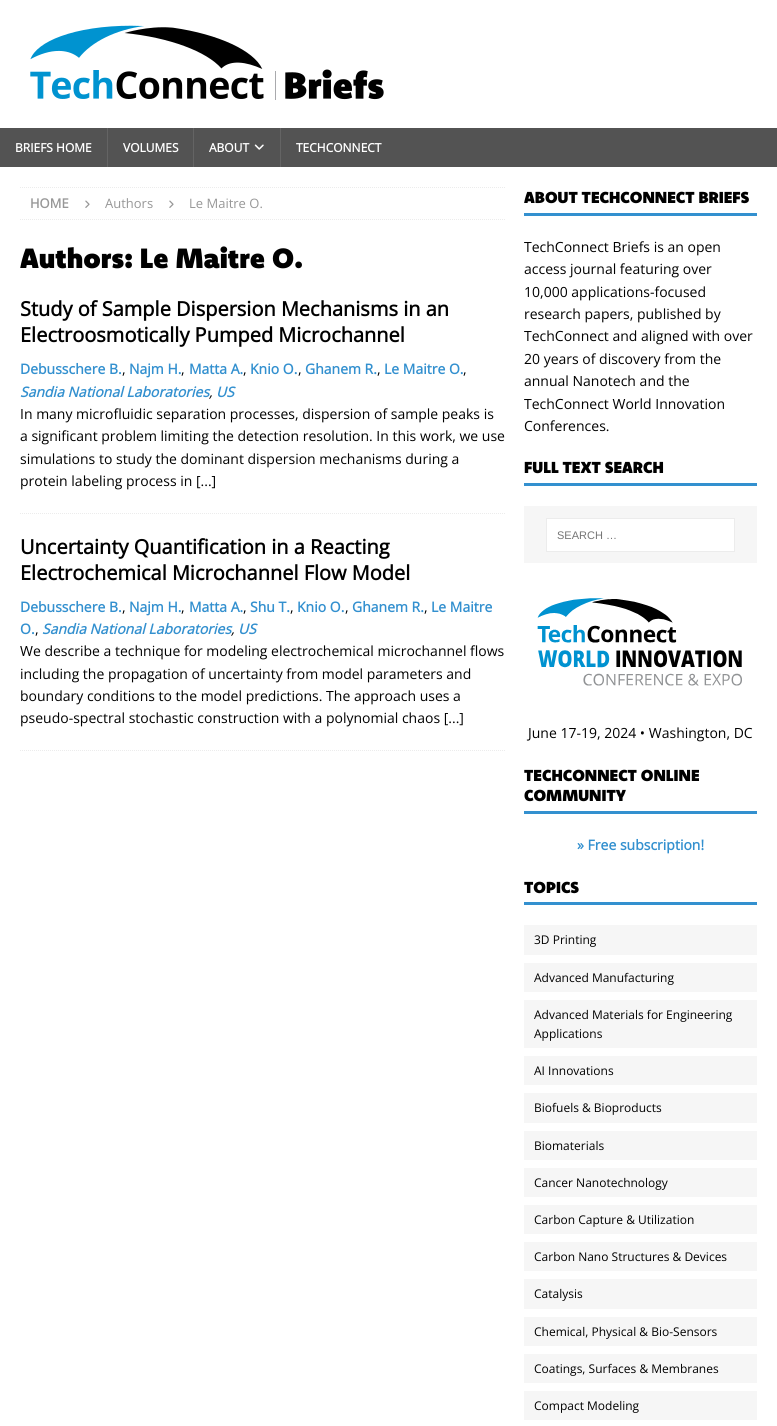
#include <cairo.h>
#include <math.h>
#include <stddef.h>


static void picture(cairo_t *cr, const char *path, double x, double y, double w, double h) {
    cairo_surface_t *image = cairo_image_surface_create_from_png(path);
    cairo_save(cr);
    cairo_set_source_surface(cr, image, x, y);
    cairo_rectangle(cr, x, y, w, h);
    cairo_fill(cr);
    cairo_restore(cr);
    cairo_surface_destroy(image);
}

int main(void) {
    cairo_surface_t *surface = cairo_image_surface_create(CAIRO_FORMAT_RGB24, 777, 1426);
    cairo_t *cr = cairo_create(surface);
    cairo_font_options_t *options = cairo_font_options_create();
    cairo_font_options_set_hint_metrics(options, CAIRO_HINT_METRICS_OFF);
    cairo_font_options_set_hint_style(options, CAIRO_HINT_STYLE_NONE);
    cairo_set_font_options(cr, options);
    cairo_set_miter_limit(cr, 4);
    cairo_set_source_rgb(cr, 1, 1, 1);
    cairo_paint(cr);
    picture(cr, "img1.png", 30, 25, 354, 75);
    cairo_set_source_rgb(cr, 0.325, 0.325, 0.325);
    cairo_rectangle(cr, 0, 128, 777, 39);
    cairo_fill(cr);
    cairo_select_font_face(cr, "Open Sans", CAIRO_FONT_SLANT_NORMAL, CAIRO_FONT_WEIGHT_BOLD);
    cairo_set_font_size(cr, 12);
    cairo_set_source_rgb(cr, 1, 1, 1);
    cairo_move_to(cr, 15, 152);
    cairo_show_text(cr, "BRIEFS HOME");
    cairo_set_source_rgb(cr, 0.392, 0.392, 0.392);
    cairo_rectangle(cr, 107, 128, 1, 39);
    cairo_fill(cr);
    cairo_set_source_rgb(cr, 1, 1, 1);
    cairo_move_to(cr, 123, 152);
    cairo_show_text(cr, "VOLUMES");
    cairo_set_source_rgb(cr, 0.392, 0.392, 0.392);
    cairo_rectangle(cr, 193, 128, 1, 39);
    cairo_fill(cr);
    cairo_set_source_rgb(cr, 1, 1, 1);
    cairo_move_to(cr, 209, 152);
    cairo_show_text(cr, "ABOUT");
    picture(cr, "img2.png", 254, 144, 10, 6);
    cairo_set_source_rgb(cr, 0.392, 0.392, 0.392);
    cairo_rectangle(cr, 280, 128, 1, 39);
    cairo_fill(cr);
    cairo_set_source_rgb(cr, 1, 1, 1);
    cairo_move_to(cr, 296, 152);
    cairo_show_text(cr, "TECHCONNECT");
    cairo_new_path(cr);
    cairo_move_to(cr, 20, 187.5);
    cairo_line_to(cr, 505, 187.5);
    cairo_set_source_rgb(cr, 0.922, 0.922, 0.922);
    cairo_set_line_width(cr, 1);
    cairo_set_dash(cr, (double[]){1, 1}, 2, 0);
    cairo_stroke(cr);
    cairo_new_path(cr);
    cairo_move_to(cr, 20, 219.5);
    cairo_line_to(cr, 505, 219.5);
    cairo_stroke(cr);
    cairo_set_font_size(cr, 13);
    cairo_set_source_rgb(cr, 0.592, 0.592, 0.592);
    cairo_move_to(cr, 30, 208);
    cairo_show_text(cr, "HOME");
    picture(cr, "img3.png", 85, 200, 5, 8);
    cairo_select_font_face(cr, "Open Sans", CAIRO_FONT_SLANT_NORMAL, CAIRO_FONT_WEIGHT_NORMAL);
    cairo_move_to(cr, 105, 208);
    cairo_show_text(cr, "Authors");
    picture(cr, "img3.png", 169, 200, 5, 8);
    cairo_move_to(cr, 189, 208);
    cairo_show_text(cr, "Le Maitre O.");
    cairo_select_font_face(cr, "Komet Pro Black", CAIRO_FONT_SLANT_NORMAL, CAIRO_FONT_WEIGHT_NORMAL);
    cairo_set_font_size(cr, 28);
    cairo_set_source_rgb(cr, 0, 0, 0);
    cairo_move_to(cr, 20, 268);
    cairo_show_text(cr, "Authors: Le Maitre O.");
    cairo_new_path(cr);
    cairo_move_to(cr, 20, 513.5);
    cairo_line_to(cr, 505, 513.5);
    cairo_set_source_rgb(cr, 0.922, 0.922, 0.922);
    cairo_stroke(cr);
    cairo_select_font_face(cr, "Open Sans", CAIRO_FONT_SLANT_NORMAL, CAIRO_FONT_WEIGHT_BOLD);
    cairo_set_font_size(cr, 20);
    cairo_set_source_rgb(cr, 0, 0, 0);
    cairo_move_to(cr, 20, 316);
    cairo_show_text(cr, "Study of Sample Dispersion Mechanisms in an");
    cairo_move_to(cr, 20, 342);
    cairo_show_text(cr, "Electroosmotically Pumped Microchannel");
    cairo_set_font_size(cr, 14);
    cairo_set_source_rgb(cr, 0.2, 0.565, 0.812);
    cairo_move_to(cr, 20, 374);
    cairo_show_text(cr, "Debusschere B.");
    cairo_select_font_face(cr, "Open Sans", CAIRO_FONT_SLANT_NORMAL, CAIRO_FONT_WEIGHT_NORMAL);
    cairo_set_source_rgb(cr, 0, 0, 0);
    cairo_move_to(cr, 122, 374);
    cairo_show_text(cr, ",");
    cairo_select_font_face(cr, "Open Sans", CAIRO_FONT_SLANT_NORMAL, CAIRO_FONT_WEIGHT_BOLD);
    cairo_set_source_rgb(cr, 0.2, 0.565, 0.812);
    cairo_move_to(cr, 129, 374);
    cairo_show_text(cr, "Najm H.");
    cairo_select_font_face(cr, "Open Sans", CAIRO_FONT_SLANT_NORMAL, CAIRO_FONT_WEIGHT_NORMAL);
    cairo_set_source_rgb(cr, 0, 0, 0);
    cairo_move_to(cr, 181, 374);
    cairo_show_text(cr, ",");
    cairo_select_font_face(cr, "Open Sans", CAIRO_FONT_SLANT_NORMAL, CAIRO_FONT_WEIGHT_BOLD);
    cairo_set_source_rgb(cr, 0.2, 0.565, 0.812);
    cairo_move_to(cr, 189, 374);
    cairo_show_text(cr, "Matta A.");
    cairo_select_font_face(cr, "Open Sans", CAIRO_FONT_SLANT_NORMAL, CAIRO_FONT_WEIGHT_NORMAL);
    cairo_set_source_rgb(cr, 0, 0, 0);
    cairo_move_to(cr, 243, 374);
    cairo_show_text(cr, ",");
    cairo_select_font_face(cr, "Open Sans", CAIRO_FONT_SLANT_NORMAL, CAIRO_FONT_WEIGHT_BOLD);
    cairo_set_source_rgb(cr, 0.2, 0.565, 0.812);
    cairo_move_to(cr, 250, 374);
    cairo_show_text(cr, "Knio O.");
    cairo_select_font_face(cr, "Open Sans", CAIRO_FONT_SLANT_NORMAL, CAIRO_FONT_WEIGHT_NORMAL);
    cairo_set_source_rgb(cr, 0, 0, 0);
    cairo_move_to(cr, 298, 374);
    cairo_show_text(cr, ",");
    cairo_select_font_face(cr, "Open Sans", CAIRO_FONT_SLANT_NORMAL, CAIRO_FONT_WEIGHT_BOLD);
    cairo_set_source_rgb(cr, 0.2, 0.565, 0.812);
    cairo_move_to(cr, 305, 374);
    cairo_show_text(cr, "Ghanem R.");
    cairo_select_font_face(cr, "Open Sans", CAIRO_FONT_SLANT_NORMAL, CAIRO_FONT_WEIGHT_NORMAL);
    cairo_set_source_rgb(cr, 0, 0, 0);
    cairo_move_to(cr, 377, 374);
    cairo_show_text(cr, ",");
    cairo_select_font_face(cr, "Open Sans", CAIRO_FONT_SLANT_NORMAL, CAIRO_FONT_WEIGHT_BOLD);
    cairo_set_source_rgb(cr, 0.2, 0.565, 0.812);
    cairo_move_to(cr, 384, 374);
    cairo_show_text(cr, "Le Maitre O.");
    cairo_select_font_face(cr, "Open Sans", CAIRO_FONT_SLANT_NORMAL, CAIRO_FONT_WEIGHT_NORMAL);
    cairo_set_source_rgb(cr, 0, 0, 0);
    cairo_move_to(cr, 463, 374);
    cairo_show_text(cr, ",");
    cairo_select_font_face(cr, "Open Sans", CAIRO_FONT_SLANT_ITALIC, CAIRO_FONT_WEIGHT_BOLD);
    cairo_set_source_rgb(cr, 0.2, 0.565, 0.812);
    cairo_move_to(cr, 20, 397);
    cairo_show_text(cr, "Sandia National Laboratories");
    cairo_move_to(cr, 216, 397);
    cairo_show_text(cr, "US");
    cairo_select_font_face(cr, "Open Sans", CAIRO_FONT_SLANT_ITALIC, CAIRO_FONT_WEIGHT_NORMAL);
    cairo_set_source_rgb(cr, 0, 0, 0);
    cairo_move_to(cr, 209, 397);
    cairo_show_text(cr, ",");
    cairo_select_font_face(cr, "Open Sans", CAIRO_FONT_SLANT_NORMAL, CAIRO_FONT_WEIGHT_NORMAL);
    cairo_move_to(cr, 20, 419);
    cairo_show_text(cr, "In many microfluidic separation processes, dispersion of sample peaks is");
    cairo_move_to(cr, 20, 441);
    cairo_show_text(cr, "a significant problem limiting the detection resolution. In this work, we use");
    cairo_move_to(cr, 20, 464);
    cairo_show_text(cr, "simulations to study the dominant dispersion mechanisms during a");
    cairo_move_to(cr, 20, 486);
    cairo_show_text(cr, "protein labeling process in [...]");
    cairo_new_path(cr);
    cairo_move_to(cr, 20, 750.5);
    cairo_line_to(cr, 505, 750.5);
    cairo_set_source_rgb(cr, 0.922, 0.922, 0.922);
    cairo_stroke(cr);
    cairo_select_font_face(cr, "Open Sans", CAIRO_FONT_SLANT_NORMAL, CAIRO_FONT_WEIGHT_BOLD);
    cairo_set_font_size(cr, 20);
    cairo_set_source_rgb(cr, 0, 0, 0);
    cairo_move_to(cr, 20, 554);
    cairo_show_text(cr, "Uncertainty Quantification in a Reacting");
    cairo_move_to(cr, 20, 580);
    cairo_show_text(cr, "Electrochemical Microchannel Flow Model");
    cairo_set_font_size(cr, 14);
    cairo_set_source_rgb(cr, 0.2, 0.565, 0.812);
    cairo_move_to(cr, 20, 612);
    cairo_show_text(cr, "Debusschere B.");
    cairo_select_font_face(cr, "Open Sans", CAIRO_FONT_SLANT_NORMAL, CAIRO_FONT_WEIGHT_NORMAL);
    cairo_set_source_rgb(cr, 0, 0, 0);
    cairo_move_to(cr, 122, 612);
    cairo_show_text(cr, ",");
    cairo_select_font_face(cr, "Open Sans", CAIRO_FONT_SLANT_NORMAL, CAIRO_FONT_WEIGHT_BOLD);
    cairo_set_source_rgb(cr, 0.2, 0.565, 0.812);
    cairo_move_to(cr, 129, 612);
    cairo_show_text(cr, "Najm H.");
    cairo_select_font_face(cr, "Open Sans", CAIRO_FONT_SLANT_NORMAL, CAIRO_FONT_WEIGHT_NORMAL);
    cairo_set_source_rgb(cr, 0, 0, 0);
    cairo_move_to(cr, 181, 612);
    cairo_show_text(cr, ",");
    cairo_select_font_face(cr, "Open Sans", CAIRO_FONT_SLANT_NORMAL, CAIRO_FONT_WEIGHT_BOLD);
    cairo_set_source_rgb(cr, 0.2, 0.565, 0.812);
    cairo_move_to(cr, 189, 612);
    cairo_show_text(cr, "Matta A.");
    cairo_select_font_face(cr, "Open Sans", CAIRO_FONT_SLANT_NORMAL, CAIRO_FONT_WEIGHT_NORMAL);
    cairo_set_source_rgb(cr, 0, 0, 0);
    cairo_move_to(cr, 243, 612);
    cairo_show_text(cr, ",");
    cairo_select_font_face(cr, "Open Sans", CAIRO_FONT_SLANT_NORMAL, CAIRO_FONT_WEIGHT_BOLD);
    cairo_set_source_rgb(cr, 0.2, 0.565, 0.812);
    cairo_move_to(cr, 250, 612);
    cairo_show_text(cr, "Shu T.");
    cairo_select_font_face(cr, "Open Sans", CAIRO_FONT_SLANT_NORMAL, CAIRO_FONT_WEIGHT_NORMAL);
    cairo_set_source_rgb(cr, 0, 0, 0);
    cairo_move_to(cr, 290, 612);
    cairo_show_text(cr, ",");
    cairo_select_font_face(cr, "Open Sans", CAIRO_FONT_SLANT_NORMAL, CAIRO_FONT_WEIGHT_BOLD);
    cairo_set_source_rgb(cr, 0.2, 0.565, 0.812);
    cairo_move_to(cr, 297, 612);
    cairo_show_text(cr, "Knio O.");
    cairo_select_font_face(cr, "Open Sans", CAIRO_FONT_SLANT_NORMAL, CAIRO_FONT_WEIGHT_NORMAL);
    cairo_set_source_rgb(cr, 0, 0, 0);
    cairo_move_to(cr, 345, 612);
    cairo_show_text(cr, ",");
    cairo_select_font_face(cr, "Open Sans", CAIRO_FONT_SLANT_NORMAL, CAIRO_FONT_WEIGHT_BOLD);
    cairo_set_source_rgb(cr, 0.2, 0.565, 0.812);
    cairo_move_to(cr, 352, 612);
    cairo_show_text(cr, "Ghanem R.");
    cairo_select_font_face(cr, "Open Sans", CAIRO_FONT_SLANT_NORMAL, CAIRO_FONT_WEIGHT_NORMAL);
    cairo_set_source_rgb(cr, 0, 0, 0);
    cairo_move_to(cr, 424, 612);
    cairo_show_text(cr, ",");
    cairo_select_font_face(cr, "Open Sans", CAIRO_FONT_SLANT_NORMAL, CAIRO_FONT_WEIGHT_BOLD);
    cairo_set_source_rgb(cr, 0.2, 0.565, 0.812);
    cairo_move_to(cr, 431, 612);
    cairo_show_text(cr, "Le Maitre");
    cairo_move_to(cr, 20, 634);
    cairo_show_text(cr, "O.");
    cairo_select_font_face(cr, "Open Sans", CAIRO_FONT_SLANT_NORMAL, CAIRO_FONT_WEIGHT_NORMAL);
    cairo_set_source_rgb(cr, 0, 0, 0);
    cairo_move_to(cr, 35, 634);
    cairo_show_text(cr, ",");
    cairo_select_font_face(cr, "Open Sans", CAIRO_FONT_SLANT_ITALIC, CAIRO_FONT_WEIGHT_BOLD);
    cairo_set_source_rgb(cr, 0.2, 0.565, 0.812);
    cairo_move_to(cr, 42, 634);
    cairo_show_text(cr, "Sandia National Laboratories");
    cairo_select_font_face(cr, "Open Sans", CAIRO_FONT_SLANT_ITALIC, CAIRO_FONT_WEIGHT_NORMAL);
    cairo_set_source_rgb(cr, 0, 0, 0);
    cairo_move_to(cr, 231, 634);
    cairo_show_text(cr, ",");
    cairo_select_font_face(cr, "Open Sans", CAIRO_FONT_SLANT_ITALIC, CAIRO_FONT_WEIGHT_BOLD);
    cairo_set_source_rgb(cr, 0.2, 0.565, 0.812);
    cairo_move_to(cr, 238, 634);
    cairo_show_text(cr, "US");
    cairo_select_font_face(cr, "Open Sans", CAIRO_FONT_SLANT_NORMAL, CAIRO_FONT_WEIGHT_NORMAL);
    cairo_set_source_rgb(cr, 0, 0, 0);
    cairo_move_to(cr, 20, 656);
    cairo_show_text(cr, "We describe a technique for modeling electrochemical microchannel flows");
    cairo_move_to(cr, 20, 679);
    cairo_show_text(cr, "including the propagation of uncertainty from model parameters and");
    cairo_move_to(cr, 20, 701);
    cairo_show_text(cr, "boundary conditions to the model predictions. The approach uses a");
    cairo_move_to(cr, 20, 723);
    cairo_show_text(cr, "pseudo-spectral stochastic construction with a polynomial chaos [...]");
    cairo_set_source_rgb(cr, 0.2, 0.565, 0.812);
    cairo_rectangle(cr, 524, 213, 233, 3);
    cairo_fill(cr);
    cairo_select_font_face(cr, "Komet Pro Black", CAIRO_FONT_SLANT_NORMAL, CAIRO_FONT_WEIGHT_NORMAL);
    cairo_set_font_size(cr, 16);
    cairo_set_source_rgb(cr, 0, 0, 0);
    cairo_move_to(cr, 524, 203);
    cairo_show_text(cr, "ABOUT TECHCONNECT BRIEFS");
    cairo_select_font_face(cr, "Open Sans", CAIRO_FONT_SLANT_NORMAL, CAIRO_FONT_WEIGHT_NORMAL);
    cairo_set_font_size(cr, 14);
    cairo_move_to(cr, 524, 252);
    cairo_show_text(cr, "TechConnect Briefs is an open");
    cairo_move_to(cr, 524, 274);
    cairo_show_text(cr, "access journal featuring over");
    cairo_move_to(cr, 524, 297);
    cairo_show_text(cr, "10,000 applications-focused");
    cairo_move_to(cr, 524, 319);
    cairo_show_text(cr, "research papers, published by");
    cairo_move_to(cr, 524, 341);
    cairo_show_text(cr, "TechConnect and aligned with over");
    cairo_move_to(cr, 524, 364);
    cairo_show_text(cr, "20 years of discovery from the");
    cairo_move_to(cr, 524, 386);
    cairo_show_text(cr, "annual Nanotech and the");
    cairo_move_to(cr, 524, 409);
    cairo_show_text(cr, "TechConnect World Innovation");
    cairo_move_to(cr, 524, 431);
    cairo_show_text(cr, "Conferences.");
    cairo_set_source_rgb(cr, 0.2, 0.565, 0.812);
    cairo_rectangle(cr, 524, 483, 233, 3);
    cairo_fill(cr);
    cairo_select_font_face(cr, "Komet Pro Black", CAIRO_FONT_SLANT_NORMAL, CAIRO_FONT_WEIGHT_NORMAL);
    cairo_set_font_size(cr, 16);
    cairo_set_source_rgb(cr, 0, 0, 0);
    cairo_move_to(cr, 524, 473);
    cairo_show_text(cr, "FULL TEXT SEARCH");
    cairo_set_source_rgb(cr, 0.961, 0.961, 0.961);
    cairo_rectangle(cr, 524, 506, 233, 57);
    cairo_fill(cr);
    cairo_set_source_rgb(cr, 1, 1, 1);
    cairo_rectangle(cr, 546.5, 518.5, 188, 33);
    cairo_fill_preserve(cr);
    cairo_set_source_rgb(cr, 0.922, 0.922, 0.922);
    cairo_set_dash(cr, NULL, 0, 0);
    cairo_stroke(cr);
    cairo_select_font_face(cr, "Liberation Sans", CAIRO_FONT_SLANT_NORMAL, CAIRO_FONT_WEIGHT_NORMAL);
    cairo_set_font_size(cr, 11);
    cairo_set_source_rgb(cr, 0.459, 0.459, 0.459);
    cairo_move_to(cr, 557, 539);
    cairo_show_text(cr, "SEARCH …");
    picture(cr, "img4.png", 537, 598, 205, 88);
    cairo_select_font_face(cr, "Open Sans", CAIRO_FONT_SLANT_NORMAL, CAIRO_FONT_WEIGHT_NORMAL);
    cairo_set_font_size(cr, 14);
    cairo_set_source_rgb(cr, 0, 0, 0);
    cairo_move_to(cr, 528, 738);
    cairo_show_text(cr, "June 17-19, 2024 • Washington, DC");
    cairo_set_source_rgb(cr, 0.2, 0.565, 0.812);
    cairo_rectangle(cr, 524, 811, 233, 3);
    cairo_fill(cr);
    cairo_save(cr);
    cairo_rectangle(cr, 524, 765, 233, 92);
    cairo_clip(cr);
    cairo_select_font_face(cr, "Komet Pro Black", CAIRO_FONT_SLANT_NORMAL, CAIRO_FONT_WEIGHT_NORMAL);
    cairo_set_font_size(cr, 16);
    cairo_set_source_rgb(cr, 0, 0, 0);
    cairo_move_to(cr, 524, 781);
    cairo_show_text(cr, "TECHCONNECT ONLINE");
    cairo_restore(cr);
    cairo_select_font_face(cr, "Komet Pro Black", CAIRO_FONT_SLANT_NORMAL, CAIRO_FONT_WEIGHT_NORMAL);
    cairo_set_font_size(cr, 16);
    cairo_set_source_rgb(cr, 0, 0, 0);
    cairo_move_to(cr, 524, 801);
    cairo_show_text(cr, "COMMUNITY");
    cairo_select_font_face(cr, "Open Sans", CAIRO_FONT_SLANT_NORMAL, CAIRO_FONT_WEIGHT_BOLD);
    cairo_set_font_size(cr, 14);
    cairo_set_source_rgb(cr, 0.2, 0.565, 0.812);
    cairo_move_to(cr, 577, 850);
    cairo_show_text(cr, "» Free subscription!");
    cairo_rectangle(cr, 524, 902, 233, 3);
    cairo_fill(cr);
    cairo_save(cr);
    cairo_rectangle(cr, 524, 877, 233, 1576);
    cairo_clip(cr);
    cairo_select_font_face(cr, "Komet Pro Black", CAIRO_FONT_SLANT_NORMAL, CAIRO_FONT_WEIGHT_NORMAL);
    cairo_set_font_size(cr, 16);
    cairo_set_source_rgb(cr, 0, 0, 0);
    cairo_move_to(cr, 524, 893);
    cairo_show_text(cr, "TOPICS");
    cairo_restore(cr);
    cairo_set_source_rgb(cr, 0.961, 0.961, 0.961);
    cairo_rectangle(cr, 524, 925, 233, 30);
    cairo_fill(cr);
    cairo_select_font_face(cr, "Open Sans", CAIRO_FONT_SLANT_NORMAL, CAIRO_FONT_WEIGHT_NORMAL);
    cairo_set_font_size(cr, 12);
    cairo_set_source_rgb(cr, 0, 0, 0);
    cairo_move_to(cr, 534, 944);
    cairo_show_text(cr, "3D Printing");
    cairo_set_source_rgb(cr, 0.961, 0.961, 0.961);
    cairo_rectangle(cr, 524, 963, 233, 29);
    cairo_fill(cr);
    cairo_set_source_rgb(cr, 0, 0, 0);
    cairo_move_to(cr, 534, 982);
    cairo_show_text(cr, "Advanced Manufacturing");
    cairo_set_source_rgb(cr, 0.961, 0.961, 0.961);
    cairo_rectangle(cr, 524, 1000, 233, 48);
    cairo_fill(cr);
    cairo_set_source_rgb(cr, 0, 0, 0);
    cairo_move_to(cr, 534, 1019);
    cairo_show_text(cr, "Advanced Materials for Engineering");
    cairo_move_to(cr, 534, 1038);
    cairo_show_text(cr, "Applications");
    cairo_set_source_rgb(cr, 0.961, 0.961, 0.961);
    cairo_rectangle(cr, 524, 1056, 233, 29);
    cairo_fill(cr);
    cairo_set_source_rgb(cr, 0, 0, 0);
    cairo_move_to(cr, 534, 1075);
    cairo_show_text(cr, "AI Innovations");
    cairo_set_source_rgb(cr, 0.961, 0.961, 0.961);
    cairo_rectangle(cr, 524, 1093, 233, 30);
    cairo_fill(cr);
    cairo_set_source_rgb(cr, 0, 0, 0);
    cairo_move_to(cr, 534, 1112);
    cairo_show_text(cr, "Biofuels & Bioproducts");
    cairo_set_source_rgb(cr, 0.961, 0.961, 0.961);
    cairo_rectangle(cr, 524, 1131, 233, 29);
    cairo_fill(cr);
    cairo_set_source_rgb(cr, 0, 0, 0);
    cairo_move_to(cr, 534, 1150);
    cairo_show_text(cr, "Biomaterials");
    cairo_set_source_rgb(cr, 0.961, 0.961, 0.961);
    cairo_rectangle(cr, 524, 1168, 233, 29);
    cairo_fill(cr);
    cairo_set_source_rgb(cr, 0, 0, 0);
    cairo_move_to(cr, 534, 1187);
    cairo_show_text(cr, "Cancer Nanotechnology");
    cairo_set_source_rgb(cr, 0.961, 0.961, 0.961);
    cairo_rectangle(cr, 524, 1205, 233, 29);
    cairo_fill(cr);
    cairo_set_source_rgb(cr, 0, 0, 0);
    cairo_move_to(cr, 534, 1224);
    cairo_show_text(cr, "Carbon Capture & Utilization");
    cairo_set_source_rgb(cr, 0.961, 0.961, 0.961);
    cairo_rectangle(cr, 524, 1242, 233, 29);
    cairo_fill(cr);
    cairo_set_source_rgb(cr, 0, 0, 0);
    cairo_move_to(cr, 534, 1261);
    cairo_show_text(cr, "Carbon Nano Structures & Devices");
    cairo_set_source_rgb(cr, 0.961, 0.961, 0.961);
    cairo_rectangle(cr, 524, 1279, 233, 30);
    cairo_fill(cr);
    cairo_set_source_rgb(cr, 0, 0, 0);
    cairo_move_to(cr, 534, 1298);
    cairo_show_text(cr, "Catalysis");
    cairo_set_source_rgb(cr, 0.961, 0.961, 0.961);
    cairo_rectangle(cr, 524, 1317, 233, 29);
    cairo_fill(cr);
    cairo_set_source_rgb(cr, 0, 0, 0);
    cairo_move_to(cr, 534, 1336);
    cairo_show_text(cr, "Chemical, Physical & Bio-Sensors");
    cairo_set_source_rgb(cr, 0.961, 0.961, 0.961);
    cairo_rectangle(cr, 524, 1354, 233, 29);
    cairo_fill(cr);
    cairo_set_source_rgb(cr, 0, 0, 0);
    cairo_move_to(cr, 534, 1373);
    cairo_show_text(cr, "Coatings, Surfaces & Membranes");
    cairo_set_source_rgb(cr, 0.961, 0.961, 0.961);
    cairo_rectangle(cr, 524, 1391, 233, 29);
    cairo_fill(cr);
    cairo_set_source_rgb(cr, 0, 0, 0);
    cairo_move_to(cr, 534, 1410);
    cairo_show_text(cr, "Compact Modeling");
    cairo_surface_write_to_png(surface, "page.png");
    cairo_font_options_destroy(options);
    cairo_destroy(cr);
    cairo_surface_destroy(surface);
    return 0;
}
